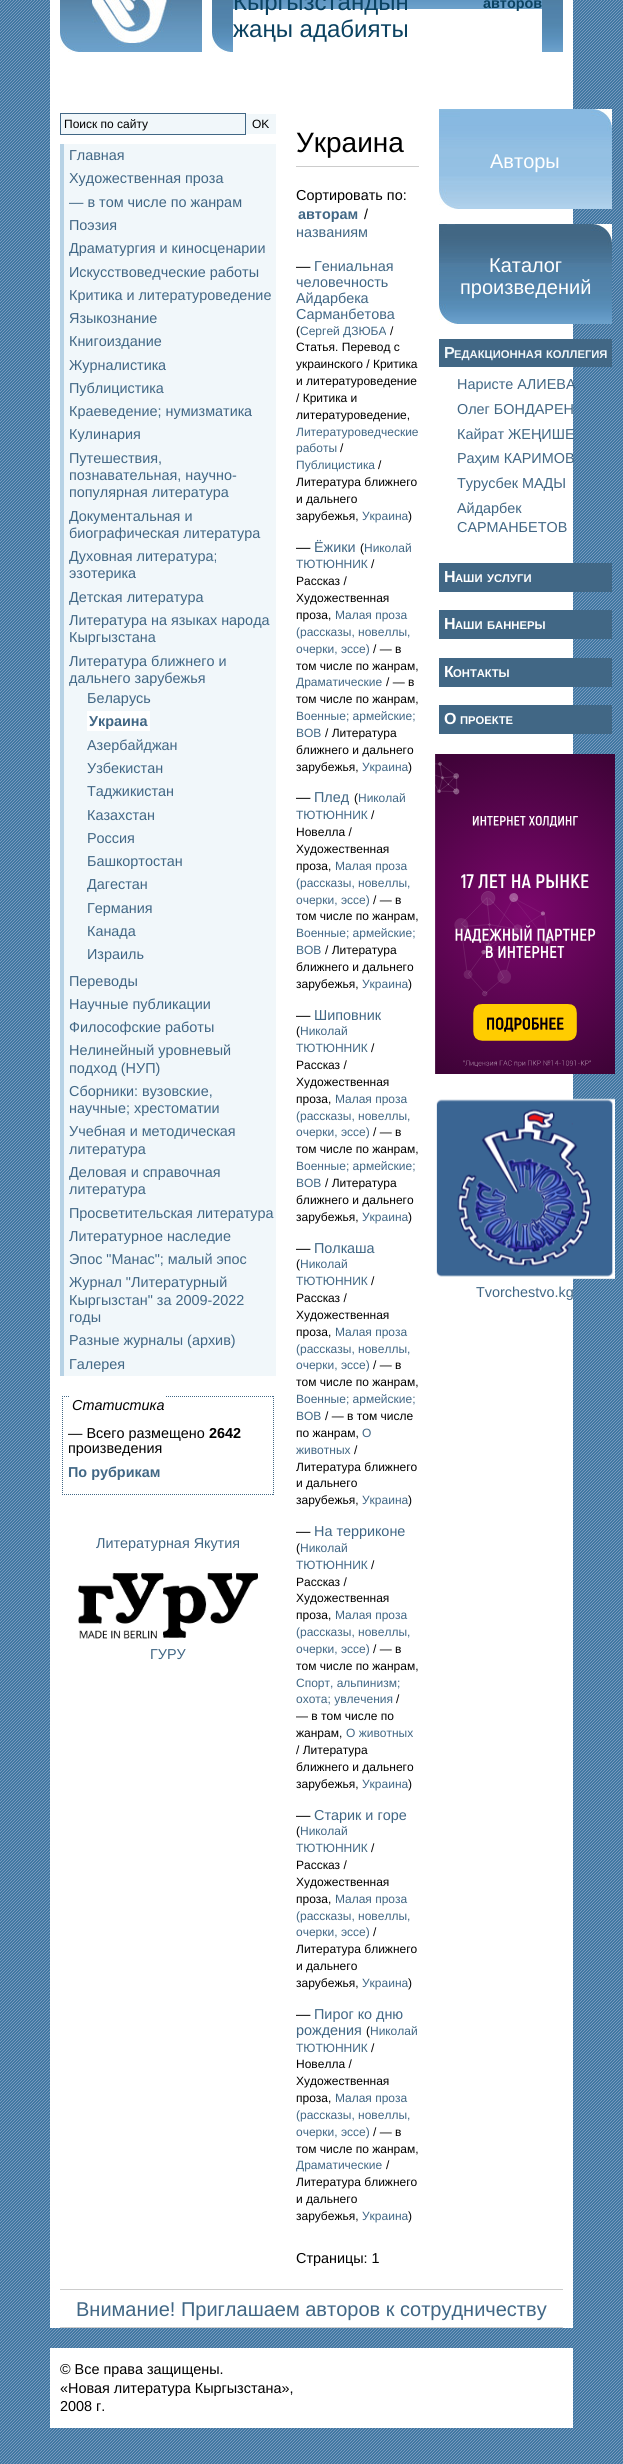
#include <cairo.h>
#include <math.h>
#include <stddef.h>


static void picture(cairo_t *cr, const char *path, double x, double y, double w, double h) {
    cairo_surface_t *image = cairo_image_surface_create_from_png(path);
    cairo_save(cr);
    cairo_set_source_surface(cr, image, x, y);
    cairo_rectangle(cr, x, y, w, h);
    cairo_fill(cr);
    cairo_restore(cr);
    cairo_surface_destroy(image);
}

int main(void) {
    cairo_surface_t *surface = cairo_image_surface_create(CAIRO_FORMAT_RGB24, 623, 2464);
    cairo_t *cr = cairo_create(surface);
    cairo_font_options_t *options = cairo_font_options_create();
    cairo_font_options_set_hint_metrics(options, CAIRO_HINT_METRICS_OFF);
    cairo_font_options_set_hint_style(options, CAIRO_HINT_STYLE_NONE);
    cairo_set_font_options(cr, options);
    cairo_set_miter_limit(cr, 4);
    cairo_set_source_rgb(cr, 1, 1, 1);
    cairo_paint(cr);
    picture(cr, "img1.png", 0, 0, 623, 2464);
    cairo_set_source_rgb(cr, 1, 1, 1);
    cairo_rectangle(cr, 50, 0, 523, 2328);
    cairo_fill(cr);
    picture(cr, "img2.png", 60, 0, 142, 52);
    picture(cr, "img3.png", 212, 0, 21, 52);
    picture(cr, "img4.png", 233, 0, 309, 9);
    cairo_select_font_face(cr, "Liberation Sans", CAIRO_FONT_SLANT_NORMAL, CAIRO_FONT_WEIGHT_NORMAL);
    cairo_set_font_size(cr, 24);
    cairo_set_source_rgb(cr, 0.043, 0.259, 0.38);
    cairo_move_to(cr, 233, 10);
    cairo_show_text(cr, "Кыргызстандын");
    cairo_move_to(cr, 233, 37);
    cairo_show_text(cr, "жаңы адабияты");
    cairo_select_font_face(cr, "Liberation Sans", CAIRO_FONT_SLANT_NORMAL, CAIRO_FONT_WEIGHT_BOLD);
    cairo_set_font_size(cr, 14.4);
    cairo_move_to(cr, 483, 8);
    cairo_show_text(cr, "авторов");
    picture(cr, "img5.png", 542, 0, 21, 52);
    cairo_set_source_rgb(cr, 0.945, 0.965, 0.98);
    cairo_rectangle(cr, 60.5, 113.5, 185, 21);
    cairo_fill_preserve(cr);
    cairo_set_source_rgb(cr, 0.255, 0.404, 0.522);
    cairo_set_line_width(cr, 1);
    cairo_stroke(cr);
    cairo_select_font_face(cr, "Liberation Sans", CAIRO_FONT_SLANT_NORMAL, CAIRO_FONT_WEIGHT_NORMAL);
    cairo_set_font_size(cr, 12);
    cairo_set_source_rgb(cr, 0, 0, 0);
    cairo_move_to(cr, 64, 128);
    cairo_show_text(cr, "Поиск по сайту");
    cairo_set_source_rgb(cr, 0.945, 0.965, 0.98);
    cairo_rectangle(cr, 246, 114, 30, 20);
    cairo_fill(cr);
    cairo_set_source_rgb(cr, 0, 0, 0);
    cairo_move_to(cr, 252, 128);
    cairo_show_text(cr, "OK");
    cairo_set_source_rgb(cr, 0.945, 0.965, 0.98);
    cairo_rectangle(cr, 64, 144, 212, 1232);
    cairo_fill(cr);
    cairo_set_source_rgb(cr, 0.718, 0.824, 0.898);
    cairo_rectangle(cr, 60, 144, 4, 1232);
    cairo_fill(cr);
    cairo_set_font_size(cr, 14.4);
    cairo_set_source_rgb(cr, 0.255, 0.404, 0.522);
    cairo_move_to(cr, 69, 160);
    cairo_show_text(cr, "Главная");
    cairo_move_to(cr, 69, 183);
    cairo_show_text(cr, "Художественная проза");
    cairo_move_to(cr, 69, 207);
    cairo_show_text(cr, "— в том числе по жанрам");
    cairo_move_to(cr, 69, 230);
    cairo_show_text(cr, "Поэзия");
    cairo_move_to(cr, 69, 253);
    cairo_show_text(cr, "Драматургия и киносценарии");
    cairo_move_to(cr, 69, 277);
    cairo_show_text(cr, "Искусствоведческие работы");
    cairo_move_to(cr, 69, 300);
    cairo_show_text(cr, "Критика и литературоведение");
    cairo_move_to(cr, 69, 323);
    cairo_show_text(cr, "Языкознание");
    cairo_move_to(cr, 69, 346);
    cairo_show_text(cr, "Книгоиздание");
    cairo_move_to(cr, 69, 370);
    cairo_show_text(cr, "Журналистика");
    cairo_move_to(cr, 69, 393);
    cairo_show_text(cr, "Публицистика");
    cairo_move_to(cr, 69, 416);
    cairo_show_text(cr, "Краеведение; нумизматика");
    cairo_move_to(cr, 69, 439);
    cairo_show_text(cr, "Кулинария");
    cairo_move_to(cr, 69, 463);
    cairo_show_text(cr, "Путешествия,");
    cairo_move_to(cr, 69, 480);
    cairo_show_text(cr, "познавательная, научно-");
    cairo_move_to(cr, 69, 497);
    cairo_show_text(cr, "популярная литература");
    cairo_move_to(cr, 69, 521);
    cairo_show_text(cr, "Документальная и");
    cairo_move_to(cr, 69, 538);
    cairo_show_text(cr, "биографическая литература");
    cairo_move_to(cr, 69, 561);
    cairo_show_text(cr, "Духовная литература;");
    cairo_move_to(cr, 69, 578);
    cairo_show_text(cr, "эзотерика");
    cairo_move_to(cr, 69, 602);
    cairo_show_text(cr, "Детская литература");
    cairo_move_to(cr, 69, 625);
    cairo_show_text(cr, "Литература на языках народа");
    cairo_move_to(cr, 69, 642);
    cairo_show_text(cr, "Кыргызстана");
    cairo_move_to(cr, 69, 666);
    cairo_show_text(cr, "Литература ближнего и");
    cairo_move_to(cr, 69, 683);
    cairo_show_text(cr, "дальнего зарубежья");
    cairo_move_to(cr, 87, 703);
    cairo_show_text(cr, "Беларусь");
    cairo_set_source_rgb(cr, 1, 1, 1);
    cairo_rectangle(cr, 87, 711, 63, 20);
    cairo_fill(cr);
    cairo_select_font_face(cr, "Liberation Sans", CAIRO_FONT_SLANT_NORMAL, CAIRO_FONT_WEIGHT_BOLD);
    cairo_set_source_rgb(cr, 0.255, 0.404, 0.522);
    cairo_move_to(cr, 89, 726);
    cairo_show_text(cr, "Украина");
    cairo_select_font_face(cr, "Liberation Sans", CAIRO_FONT_SLANT_NORMAL, CAIRO_FONT_WEIGHT_NORMAL);
    cairo_move_to(cr, 87, 750);
    cairo_show_text(cr, "Азербайджан");
    cairo_move_to(cr, 87, 773);
    cairo_show_text(cr, "Узбекистан");
    cairo_move_to(cr, 87, 796);
    cairo_show_text(cr, "Таджикистан");
    cairo_move_to(cr, 87, 820);
    cairo_show_text(cr, "Казахстан");
    cairo_move_to(cr, 87, 843);
    cairo_show_text(cr, "Россия");
    cairo_move_to(cr, 87, 866);
    cairo_show_text(cr, "Башкортостан");
    cairo_move_to(cr, 87, 889);
    cairo_show_text(cr, "Дагестан");
    cairo_move_to(cr, 87, 913);
    cairo_show_text(cr, "Германия");
    cairo_move_to(cr, 87, 936);
    cairo_show_text(cr, "Канада");
    cairo_move_to(cr, 87, 959);
    cairo_show_text(cr, "Израиль");
    cairo_move_to(cr, 69, 986);
    cairo_show_text(cr, "Переводы");
    cairo_move_to(cr, 69, 1009);
    cairo_show_text(cr, "Научные публикации");
    cairo_move_to(cr, 69, 1032);
    cairo_show_text(cr, "Философские работы");
    cairo_move_to(cr, 69, 1055);
    cairo_show_text(cr, "Нелинейный уровневый");
    cairo_move_to(cr, 69, 1073);
    cairo_show_text(cr, "подход (НУП)");
    cairo_move_to(cr, 69, 1096);
    cairo_show_text(cr, "Сборники: вузовские,");
    cairo_move_to(cr, 69, 1113);
    cairo_show_text(cr, "научные; хрестоматии");
    cairo_move_to(cr, 69, 1136);
    cairo_show_text(cr, "Учебная и методическая");
    cairo_move_to(cr, 69, 1154);
    cairo_show_text(cr, "литература");
    cairo_move_to(cr, 69, 1177);
    cairo_show_text(cr, "Деловая и справочная");
    cairo_move_to(cr, 69, 1194);
    cairo_show_text(cr, "литература");
    cairo_move_to(cr, 69, 1218);
    cairo_show_text(cr, "Просветительская литература");
    cairo_move_to(cr, 69, 1241);
    cairo_show_text(cr, "Литературное наследие");
    cairo_move_to(cr, 69, 1264);
    cairo_show_text(cr, "Эпос \"Манас\"; малый эпос");
    cairo_move_to(cr, 69, 1287);
    cairo_show_text(cr, "Журнал \"Литературный");
    cairo_move_to(cr, 69, 1305);
    cairo_show_text(cr, "Кыргызстан\" за 2009-2022");
    cairo_move_to(cr, 69, 1322);
    cairo_show_text(cr, "годы");
    cairo_move_to(cr, 69, 1345);
    cairo_show_text(cr, "Разные журналы (архив)");
    cairo_move_to(cr, 69, 1369);
    cairo_show_text(cr, "Галерея");
    cairo_new_path(cr);
    cairo_move_to(cr, 62, 1396.5);
    cairo_line_to(cr, 274, 1396.5);
    cairo_set_dash(cr, (double[]){1, 1}, 2, 0);
    cairo_stroke(cr);
    cairo_new_path(cr);
    cairo_move_to(cr, 273.5, 1396);
    cairo_line_to(cr, 273.5, 1495);
    cairo_stroke(cr);
    cairo_new_path(cr);
    cairo_move_to(cr, 62, 1494.5);
    cairo_line_to(cr, 274, 1494.5);
    cairo_stroke(cr);
    cairo_new_path(cr);
    cairo_move_to(cr, 62.5, 1396);
    cairo_line_to(cr, 62.5, 1495);
    cairo_stroke(cr);
    cairo_set_source_rgb(cr, 1, 1, 1);
    cairo_rectangle(cr, 70, 1396, 95, 1);
    cairo_fill(cr);
    cairo_select_font_face(cr, "Liberation Sans", CAIRO_FONT_SLANT_ITALIC, CAIRO_FONT_WEIGHT_NORMAL);
    cairo_set_source_rgb(cr, 0, 0, 0);
    cairo_move_to(cr, 72, 1410);
    cairo_show_text(cr, "Статистика");
    cairo_select_font_face(cr, "Liberation Sans", CAIRO_FONT_SLANT_NORMAL, CAIRO_FONT_WEIGHT_NORMAL);
    cairo_move_to(cr, 68, 1438);
    cairo_show_text(cr, "— Всего размещено");
    cairo_select_font_face(cr, "Liberation Sans", CAIRO_FONT_SLANT_NORMAL, CAIRO_FONT_WEIGHT_BOLD);
    cairo_move_to(cr, 209, 1438);
    cairo_show_text(cr, "2642");
    cairo_select_font_face(cr, "Liberation Sans", CAIRO_FONT_SLANT_NORMAL, CAIRO_FONT_WEIGHT_NORMAL);
    cairo_move_to(cr, 68, 1453);
    cairo_show_text(cr, "произведения");
    cairo_select_font_face(cr, "Liberation Sans", CAIRO_FONT_SLANT_NORMAL, CAIRO_FONT_WEIGHT_BOLD);
    cairo_set_source_rgb(cr, 0.255, 0.404, 0.522);
    cairo_move_to(cr, 68, 1477);
    cairo_show_text(cr, "По рубрикам");
    cairo_select_font_face(cr, "Liberation Sans", CAIRO_FONT_SLANT_NORMAL, CAIRO_FONT_WEIGHT_NORMAL);
    cairo_move_to(cr, 96, 1548);
    cairo_show_text(cr, "Литературная Якутия");
    picture(cr, "img6.png", 78, 1573, 180, 66);
    cairo_move_to(cr, 150, 1659);
    cairo_show_text(cr, "ГУРУ");
    cairo_set_font_size(cr, 28);
    cairo_set_source_rgb(cr, 0, 0, 0);
    cairo_move_to(cr, 296, 152);
    cairo_show_text(cr, "Украина");
    cairo_set_source_rgb(cr, 0.8, 0.8, 0.8);
    cairo_rectangle(cr, 296, 166, 123, 1);
    cairo_fill(cr);
    cairo_set_font_size(cr, 14.4);
    cairo_set_source_rgb(cr, 0, 0, 0);
    cairo_move_to(cr, 296, 200);
    cairo_show_text(cr, "Сортировать по:");
    cairo_select_font_face(cr, "Liberation Sans", CAIRO_FONT_SLANT_NORMAL, CAIRO_FONT_WEIGHT_BOLD);
    cairo_set_source_rgb(cr, 0.255, 0.404, 0.522);
    cairo_move_to(cr, 298, 219);
    cairo_show_text(cr, "авторам");
    cairo_select_font_face(cr, "Liberation Sans", CAIRO_FONT_SLANT_NORMAL, CAIRO_FONT_WEIGHT_NORMAL);
    cairo_set_source_rgb(cr, 0, 0, 0);
    cairo_move_to(cr, 364, 219);
    cairo_show_text(cr, "/");
    cairo_set_source_rgb(cr, 0.255, 0.404, 0.522);
    cairo_move_to(cr, 296, 237);
    cairo_show_text(cr, "названиям");
    cairo_set_source_rgb(cr, 0, 0, 0);
    cairo_move_to(cr, 296, 271);
    cairo_show_text(cr, "—");
    cairo_set_source_rgb(cr, 0.255, 0.404, 0.522);
    cairo_move_to(cr, 314, 271);
    cairo_show_text(cr, "Гениальная");
    cairo_move_to(cr, 296, 287);
    cairo_show_text(cr, "человечность");
    cairo_move_to(cr, 296, 303);
    cairo_show_text(cr, "Айдарбека");
    cairo_move_to(cr, 296, 319);
    cairo_show_text(cr, "Сарманбетова");
    cairo_set_font_size(cr, 12);
    cairo_set_source_rgb(cr, 0, 0, 0);
    cairo_move_to(cr, 296, 335);
    cairo_show_text(cr, "(");
    cairo_set_source_rgb(cr, 0.255, 0.404, 0.522);
    cairo_move_to(cr, 300, 335);
    cairo_show_text(cr, "Сергей ДЗЮБА");
    cairo_set_source_rgb(cr, 0, 0, 0);
    cairo_move_to(cr, 390, 335);
    cairo_show_text(cr, "/");
    cairo_move_to(cr, 296, 351);
    cairo_show_text(cr, "Статья. Перевод с");
    cairo_move_to(cr, 296, 368);
    cairo_show_text(cr, "украинского / Критика");
    cairo_move_to(cr, 296, 385);
    cairo_show_text(cr, "и литературоведение");
    cairo_move_to(cr, 296, 402);
    cairo_show_text(cr, "/ Критика и");
    cairo_move_to(cr, 296, 419);
    cairo_show_text(cr, "литературоведение,");
    cairo_set_source_rgb(cr, 0.255, 0.404, 0.522);
    cairo_move_to(cr, 296, 436);
    cairo_show_text(cr, "Литературоведческие");
    cairo_move_to(cr, 296, 452);
    cairo_show_text(cr, "работы");
    cairo_set_source_rgb(cr, 0, 0, 0);
    cairo_move_to(cr, 340, 452);
    cairo_show_text(cr, "/");
    cairo_set_source_rgb(cr, 0.255, 0.404, 0.522);
    cairo_move_to(cr, 296, 469);
    cairo_show_text(cr, "Публицистика");
    cairo_set_source_rgb(cr, 0, 0, 0);
    cairo_move_to(cr, 378, 469);
    cairo_show_text(cr, "/");
    cairo_move_to(cr, 296, 486);
    cairo_show_text(cr, "Литература ближнего");
    cairo_move_to(cr, 296, 503);
    cairo_show_text(cr, "и дальнего");
    cairo_move_to(cr, 296, 520);
    cairo_show_text(cr, "зарубежья,");
    cairo_set_source_rgb(cr, 0.255, 0.404, 0.522);
    cairo_move_to(cr, 362, 520);
    cairo_show_text(cr, "Украина");
    cairo_set_source_rgb(cr, 0, 0, 0);
    cairo_move_to(cr, 408, 520);
    cairo_show_text(cr, ")");
    cairo_set_font_size(cr, 14.4);
    cairo_move_to(cr, 296, 552);
    cairo_show_text(cr, "—");
    cairo_set_source_rgb(cr, 0.255, 0.404, 0.522);
    cairo_move_to(cr, 314, 552);
    cairo_show_text(cr, "Ёжики");
    cairo_set_font_size(cr, 12);
    cairo_set_source_rgb(cr, 0, 0, 0);
    cairo_move_to(cr, 360, 552);
    cairo_show_text(cr, "(");
    cairo_set_source_rgb(cr, 0.255, 0.404, 0.522);
    cairo_move_to(cr, 364, 552);
    cairo_show_text(cr, "Николай");
    cairo_move_to(cr, 296, 568);
    cairo_show_text(cr, "ТЮТЮННИК");
    cairo_set_source_rgb(cr, 0, 0, 0);
    cairo_move_to(cr, 371, 568);
    cairo_show_text(cr, "/");
    cairo_move_to(cr, 296, 585);
    cairo_show_text(cr, "Рассказ /");
    cairo_move_to(cr, 296, 602);
    cairo_show_text(cr, "Художественная");
    cairo_move_to(cr, 296, 619);
    cairo_show_text(cr, "проза,");
    cairo_set_source_rgb(cr, 0.255, 0.404, 0.522);
    cairo_move_to(cr, 335, 619);
    cairo_show_text(cr, "Малая проза");
    cairo_move_to(cr, 296, 636);
    cairo_show_text(cr, "(рассказы, новеллы,");
    cairo_move_to(cr, 296, 653);
    cairo_show_text(cr, "очерки, эссе)");
    cairo_set_source_rgb(cr, 0, 0, 0);
    cairo_move_to(cr, 373, 653);
    cairo_show_text(cr, "/ — в");
    cairo_move_to(cr, 296, 670);
    cairo_show_text(cr, "том числе по жанрам,");
    cairo_set_source_rgb(cr, 0.255, 0.404, 0.522);
    cairo_move_to(cr, 296, 686);
    cairo_show_text(cr, "Драматические");
    cairo_set_source_rgb(cr, 0, 0, 0);
    cairo_move_to(cr, 386, 686);
    cairo_show_text(cr, "/ — в");
    cairo_move_to(cr, 296, 703);
    cairo_show_text(cr, "том числе по жанрам,");
    cairo_set_source_rgb(cr, 0.255, 0.404, 0.522);
    cairo_move_to(cr, 296, 720);
    cairo_show_text(cr, "Военные; армейские;");
    cairo_move_to(cr, 296, 737);
    cairo_show_text(cr, "ВОВ");
    cairo_set_source_rgb(cr, 0, 0, 0);
    cairo_move_to(cr, 325, 737);
    cairo_show_text(cr, "/ Литература");
    cairo_move_to(cr, 296, 754);
    cairo_show_text(cr, "ближнего и дальнего");
    cairo_move_to(cr, 296, 771);
    cairo_show_text(cr, "зарубежья,");
    cairo_set_source_rgb(cr, 0.255, 0.404, 0.522);
    cairo_move_to(cr, 362, 771);
    cairo_show_text(cr, "Украина");
    cairo_set_source_rgb(cr, 0, 0, 0);
    cairo_move_to(cr, 408, 771);
    cairo_show_text(cr, ")");
    cairo_set_font_size(cr, 14.4);
    cairo_move_to(cr, 296, 802);
    cairo_show_text(cr, "—");
    cairo_set_source_rgb(cr, 0.255, 0.404, 0.522);
    cairo_move_to(cr, 314, 802);
    cairo_show_text(cr, "Плед");
    cairo_set_font_size(cr, 12);
    cairo_set_source_rgb(cr, 0, 0, 0);
    cairo_move_to(cr, 354, 802);
    cairo_show_text(cr, "(");
    cairo_set_source_rgb(cr, 0.255, 0.404, 0.522);
    cairo_move_to(cr, 358, 802);
    cairo_show_text(cr, "Николай");
    cairo_move_to(cr, 296, 819);
    cairo_show_text(cr, "ТЮТЮННИК");
    cairo_set_source_rgb(cr, 0, 0, 0);
    cairo_move_to(cr, 371, 819);
    cairo_show_text(cr, "/");
    cairo_move_to(cr, 296, 836);
    cairo_show_text(cr, "Новелла /");
    cairo_move_to(cr, 296, 853);
    cairo_show_text(cr, "Художественная");
    cairo_move_to(cr, 296, 870);
    cairo_show_text(cr, "проза,");
    cairo_set_source_rgb(cr, 0.255, 0.404, 0.522);
    cairo_move_to(cr, 335, 870);
    cairo_show_text(cr, "Малая проза");
    cairo_move_to(cr, 296, 887);
    cairo_show_text(cr, "(рассказы, новеллы,");
    cairo_move_to(cr, 296, 904);
    cairo_show_text(cr, "очерки, эссе)");
    cairo_set_source_rgb(cr, 0, 0, 0);
    cairo_move_to(cr, 373, 904);
    cairo_show_text(cr, "/ — в");
    cairo_move_to(cr, 296, 920);
    cairo_show_text(cr, "том числе по жанрам,");
    cairo_set_source_rgb(cr, 0.255, 0.404, 0.522);
    cairo_move_to(cr, 296, 937);
    cairo_show_text(cr, "Военные; армейские;");
    cairo_move_to(cr, 296, 954);
    cairo_show_text(cr, "ВОВ");
    cairo_set_source_rgb(cr, 0, 0, 0);
    cairo_move_to(cr, 325, 954);
    cairo_show_text(cr, "/ Литература");
    cairo_move_to(cr, 296, 971);
    cairo_show_text(cr, "ближнего и дальнего");
    cairo_move_to(cr, 296, 988);
    cairo_show_text(cr, "зарубежья,");
    cairo_set_source_rgb(cr, 0.255, 0.404, 0.522);
    cairo_move_to(cr, 362, 988);
    cairo_show_text(cr, "Украина");
    cairo_set_source_rgb(cr, 0, 0, 0);
    cairo_move_to(cr, 408, 988);
    cairo_show_text(cr, ")");
    cairo_set_font_size(cr, 14.4);
    cairo_move_to(cr, 296, 1020);
    cairo_show_text(cr, "—");
    cairo_set_source_rgb(cr, 0.255, 0.404, 0.522);
    cairo_move_to(cr, 314, 1020);
    cairo_show_text(cr, "Шиповник");
    cairo_set_font_size(cr, 12);
    cairo_set_source_rgb(cr, 0, 0, 0);
    cairo_move_to(cr, 296, 1035);
    cairo_show_text(cr, "(");
    cairo_set_source_rgb(cr, 0.255, 0.404, 0.522);
    cairo_move_to(cr, 300, 1035);
    cairo_show_text(cr, "Николай");
    cairo_move_to(cr, 296, 1052);
    cairo_show_text(cr, "ТЮТЮННИК");
    cairo_set_source_rgb(cr, 0, 0, 0);
    cairo_move_to(cr, 371, 1052);
    cairo_show_text(cr, "/");
    cairo_move_to(cr, 296, 1069);
    cairo_show_text(cr, "Рассказ /");
    cairo_move_to(cr, 296, 1086);
    cairo_show_text(cr, "Художественная");
    cairo_move_to(cr, 296, 1103);
    cairo_show_text(cr, "проза,");
    cairo_set_source_rgb(cr, 0.255, 0.404, 0.522);
    cairo_move_to(cr, 335, 1103);
    cairo_show_text(cr, "Малая проза");
    cairo_move_to(cr, 296, 1120);
    cairo_show_text(cr, "(рассказы, новеллы,");
    cairo_move_to(cr, 296, 1136);
    cairo_show_text(cr, "очерки, эссе)");
    cairo_set_source_rgb(cr, 0, 0, 0);
    cairo_move_to(cr, 373, 1136);
    cairo_show_text(cr, "/ — в");
    cairo_move_to(cr, 296, 1153);
    cairo_show_text(cr, "том числе по жанрам,");
    cairo_set_source_rgb(cr, 0.255, 0.404, 0.522);
    cairo_move_to(cr, 296, 1170);
    cairo_show_text(cr, "Военные; армейские;");
    cairo_move_to(cr, 296, 1187);
    cairo_show_text(cr, "ВОВ");
    cairo_set_source_rgb(cr, 0, 0, 0);
    cairo_move_to(cr, 325, 1187);
    cairo_show_text(cr, "/ Литература");
    cairo_move_to(cr, 296, 1204);
    cairo_show_text(cr, "ближнего и дальнего");
    cairo_move_to(cr, 296, 1221);
    cairo_show_text(cr, "зарубежья,");
    cairo_set_source_rgb(cr, 0.255, 0.404, 0.522);
    cairo_move_to(cr, 362, 1221);
    cairo_show_text(cr, "Украина");
    cairo_set_source_rgb(cr, 0, 0, 0);
    cairo_move_to(cr, 408, 1221);
    cairo_show_text(cr, ")");
    cairo_set_font_size(cr, 14.4);
    cairo_move_to(cr, 296, 1253);
    cairo_show_text(cr, "—");
    cairo_set_source_rgb(cr, 0.255, 0.404, 0.522);
    cairo_move_to(cr, 314, 1253);
    cairo_show_text(cr, "Полкаша");
    cairo_set_font_size(cr, 12);
    cairo_set_source_rgb(cr, 0, 0, 0);
    cairo_move_to(cr, 296, 1268);
    cairo_show_text(cr, "(");
    cairo_set_source_rgb(cr, 0.255, 0.404, 0.522);
    cairo_move_to(cr, 300, 1268);
    cairo_show_text(cr, "Николай");
    cairo_move_to(cr, 296, 1285);
    cairo_show_text(cr, "ТЮТЮННИК");
    cairo_set_source_rgb(cr, 0, 0, 0);
    cairo_move_to(cr, 371, 1285);
    cairo_show_text(cr, "/");
    cairo_move_to(cr, 296, 1302);
    cairo_show_text(cr, "Рассказ /");
    cairo_move_to(cr, 296, 1319);
    cairo_show_text(cr, "Художественная");
    cairo_move_to(cr, 296, 1336);
    cairo_show_text(cr, "проза,");
    cairo_set_source_rgb(cr, 0.255, 0.404, 0.522);
    cairo_move_to(cr, 335, 1336);
    cairo_show_text(cr, "Малая проза");
    cairo_move_to(cr, 296, 1353);
    cairo_show_text(cr, "(рассказы, новеллы,");
    cairo_move_to(cr, 296, 1369);
    cairo_show_text(cr, "очерки, эссе)");
    cairo_set_source_rgb(cr, 0, 0, 0);
    cairo_move_to(cr, 373, 1369);
    cairo_show_text(cr, "/ — в");
    cairo_move_to(cr, 296, 1386);
    cairo_show_text(cr, "том числе по жанрам,");
    cairo_set_source_rgb(cr, 0.255, 0.404, 0.522);
    cairo_move_to(cr, 296, 1403);
    cairo_show_text(cr, "Военные; армейские;");
    cairo_move_to(cr, 296, 1420);
    cairo_show_text(cr, "ВОВ");
    cairo_set_source_rgb(cr, 0, 0, 0);
    cairo_move_to(cr, 325, 1420);
    cairo_show_text(cr, "/ — в том числе");
    cairo_move_to(cr, 296, 1437);
    cairo_show_text(cr, "по жанрам,");
    cairo_set_source_rgb(cr, 0.255, 0.404, 0.522);
    cairo_move_to(cr, 362, 1437);
    cairo_show_text(cr, "О");
    cairo_move_to(cr, 296, 1454);
    cairo_show_text(cr, "животных");
    cairo_set_source_rgb(cr, 0, 0, 0);
    cairo_move_to(cr, 354, 1454);
    cairo_show_text(cr, "/");
    cairo_move_to(cr, 296, 1471);
    cairo_show_text(cr, "Литература ближнего");
    cairo_move_to(cr, 296, 1487);
    cairo_show_text(cr, "и дальнего");
    cairo_move_to(cr, 296, 1504);
    cairo_show_text(cr, "зарубежья,");
    cairo_set_source_rgb(cr, 0.255, 0.404, 0.522);
    cairo_move_to(cr, 362, 1504);
    cairo_show_text(cr, "Украина");
    cairo_set_source_rgb(cr, 0, 0, 0);
    cairo_move_to(cr, 408, 1504);
    cairo_show_text(cr, ")");
    cairo_set_font_size(cr, 14.4);
    cairo_move_to(cr, 296, 1536);
    cairo_show_text(cr, "—");
    cairo_set_source_rgb(cr, 0.255, 0.404, 0.522);
    cairo_move_to(cr, 314, 1536);
    cairo_show_text(cr, "На терриконе");
    cairo_set_font_size(cr, 12);
    cairo_set_source_rgb(cr, 0, 0, 0);
    cairo_move_to(cr, 296, 1552);
    cairo_show_text(cr, "(");
    cairo_set_source_rgb(cr, 0.255, 0.404, 0.522);
    cairo_move_to(cr, 300, 1552);
    cairo_show_text(cr, "Николай");
    cairo_move_to(cr, 296, 1569);
    cairo_show_text(cr, "ТЮТЮННИК");
    cairo_set_source_rgb(cr, 0, 0, 0);
    cairo_move_to(cr, 371, 1569);
    cairo_show_text(cr, "/");
    cairo_move_to(cr, 296, 1586);
    cairo_show_text(cr, "Рассказ /");
    cairo_move_to(cr, 296, 1602);
    cairo_show_text(cr, "Художественная");
    cairo_move_to(cr, 296, 1619);
    cairo_show_text(cr, "проза,");
    cairo_set_source_rgb(cr, 0.255, 0.404, 0.522);
    cairo_move_to(cr, 335, 1619);
    cairo_show_text(cr, "Малая проза");
    cairo_move_to(cr, 296, 1636);
    cairo_show_text(cr, "(рассказы, новеллы,");
    cairo_move_to(cr, 296, 1653);
    cairo_show_text(cr, "очерки, эссе)");
    cairo_set_source_rgb(cr, 0, 0, 0);
    cairo_move_to(cr, 373, 1653);
    cairo_show_text(cr, "/ — в");
    cairo_move_to(cr, 296, 1670);
    cairo_show_text(cr, "том числе по жанрам,");
    cairo_set_source_rgb(cr, 0.255, 0.404, 0.522);
    cairo_move_to(cr, 296, 1687);
    cairo_show_text(cr, "Спорт, альпинизм;");
    cairo_move_to(cr, 296, 1703);
    cairo_show_text(cr, "охота; увлечения");
    cairo_set_source_rgb(cr, 0, 0, 0);
    cairo_move_to(cr, 396, 1703);
    cairo_show_text(cr, "/");
    cairo_move_to(cr, 296, 1720);
    cairo_show_text(cr, "— в том числе по");
    cairo_move_to(cr, 296, 1737);
    cairo_show_text(cr, "жанрам,");
    cairo_set_source_rgb(cr, 0.255, 0.404, 0.522);
    cairo_move_to(cr, 346, 1737);
    cairo_show_text(cr, "О животных");
    cairo_set_source_rgb(cr, 0, 0, 0);
    cairo_move_to(cr, 296, 1754);
    cairo_show_text(cr, "/ Литература");
    cairo_move_to(cr, 296, 1771);
    cairo_show_text(cr, "ближнего и дальнего");
    cairo_move_to(cr, 296, 1788);
    cairo_show_text(cr, "зарубежья,");
    cairo_set_source_rgb(cr, 0.255, 0.404, 0.522);
    cairo_move_to(cr, 362, 1788);
    cairo_show_text(cr, "Украина");
    cairo_set_source_rgb(cr, 0, 0, 0);
    cairo_move_to(cr, 408, 1788);
    cairo_show_text(cr, ")");
    cairo_set_font_size(cr, 14.4);
    cairo_move_to(cr, 296, 1820);
    cairo_show_text(cr, "—");
    cairo_set_source_rgb(cr, 0.255, 0.404, 0.522);
    cairo_move_to(cr, 314, 1820);
    cairo_show_text(cr, "Старик и горе");
    cairo_set_font_size(cr, 12);
    cairo_set_source_rgb(cr, 0, 0, 0);
    cairo_move_to(cr, 296, 1835);
    cairo_show_text(cr, "(");
    cairo_set_source_rgb(cr, 0.255, 0.404, 0.522);
    cairo_move_to(cr, 300, 1835);
    cairo_show_text(cr, "Николай");
    cairo_move_to(cr, 296, 1852);
    cairo_show_text(cr, "ТЮТЮННИК");
    cairo_set_source_rgb(cr, 0, 0, 0);
    cairo_move_to(cr, 371, 1852);
    cairo_show_text(cr, "/");
    cairo_move_to(cr, 296, 1869);
    cairo_show_text(cr, "Рассказ /");
    cairo_move_to(cr, 296, 1886);
    cairo_show_text(cr, "Художественная");
    cairo_move_to(cr, 296, 1903);
    cairo_show_text(cr, "проза,");
    cairo_set_source_rgb(cr, 0.255, 0.404, 0.522);
    cairo_move_to(cr, 335, 1903);
    cairo_show_text(cr, "Малая проза");
    cairo_move_to(cr, 296, 1920);
    cairo_show_text(cr, "(рассказы, новеллы,");
    cairo_move_to(cr, 296, 1936);
    cairo_show_text(cr, "очерки, эссе)");
    cairo_set_source_rgb(cr, 0, 0, 0);
    cairo_move_to(cr, 373, 1936);
    cairo_show_text(cr, "/");
    cairo_move_to(cr, 296, 1953);
    cairo_show_text(cr, "Литература ближнего");
    cairo_move_to(cr, 296, 1970);
    cairo_show_text(cr, "и дальнего");
    cairo_move_to(cr, 296, 1987);
    cairo_show_text(cr, "зарубежья,");
    cairo_set_source_rgb(cr, 0.255, 0.404, 0.522);
    cairo_move_to(cr, 362, 1987);
    cairo_show_text(cr, "Украина");
    cairo_set_source_rgb(cr, 0, 0, 0);
    cairo_move_to(cr, 408, 1987);
    cairo_show_text(cr, ")");
    cairo_set_font_size(cr, 14.4);
    cairo_move_to(cr, 296, 2019);
    cairo_show_text(cr, "—");
    cairo_set_source_rgb(cr, 0.255, 0.404, 0.522);
    cairo_move_to(cr, 314, 2019);
    cairo_show_text(cr, "Пирог ко дню");
    cairo_move_to(cr, 296, 2035);
    cairo_show_text(cr, "рождения");
    cairo_set_font_size(cr, 12);
    cairo_set_source_rgb(cr, 0, 0, 0);
    cairo_move_to(cr, 366, 2035);
    cairo_show_text(cr, "(");
    cairo_set_source_rgb(cr, 0.255, 0.404, 0.522);
    cairo_move_to(cr, 370, 2035);
    cairo_show_text(cr, "Николай");
    cairo_move_to(cr, 296, 2052);
    cairo_show_text(cr, "ТЮТЮННИК");
    cairo_set_source_rgb(cr, 0, 0, 0);
    cairo_move_to(cr, 371, 2052);
    cairo_show_text(cr, "/");
    cairo_move_to(cr, 296, 2068);
    cairo_show_text(cr, "Новелла /");
    cairo_move_to(cr, 296, 2085);
    cairo_show_text(cr, "Художественная");
    cairo_move_to(cr, 296, 2102);
    cairo_show_text(cr, "проза,");
    cairo_set_source_rgb(cr, 0.255, 0.404, 0.522);
    cairo_move_to(cr, 335, 2102);
    cairo_show_text(cr, "Малая проза");
    cairo_move_to(cr, 296, 2119);
    cairo_show_text(cr, "(рассказы, новеллы,");
    cairo_move_to(cr, 296, 2136);
    cairo_show_text(cr, "очерки, эссе)");
    cairo_set_source_rgb(cr, 0, 0, 0);
    cairo_move_to(cr, 373, 2136);
    cairo_show_text(cr, "/ — в");
    cairo_move_to(cr, 296, 2153);
    cairo_show_text(cr, "том числе по жанрам,");
    cairo_set_source_rgb(cr, 0.255, 0.404, 0.522);
    cairo_move_to(cr, 296, 2169);
    cairo_show_text(cr, "Драматические");
    cairo_set_source_rgb(cr, 0, 0, 0);
    cairo_move_to(cr, 386, 2169);
    cairo_show_text(cr, "/");
    cairo_move_to(cr, 296, 2186);
    cairo_show_text(cr, "Литература ближнего");
    cairo_move_to(cr, 296, 2203);
    cairo_show_text(cr, "и дальнего");
    cairo_move_to(cr, 296, 2220);
    cairo_show_text(cr, "зарубежья,");
    cairo_set_source_rgb(cr, 0.255, 0.404, 0.522);
    cairo_move_to(cr, 362, 2220);
    cairo_show_text(cr, "Украина");
    cairo_set_source_rgb(cr, 0, 0, 0);
    cairo_move_to(cr, 408, 2220);
    cairo_show_text(cr, ")");
    cairo_set_font_size(cr, 14.4);
    cairo_move_to(cr, 296, 2263);
    cairo_show_text(cr, "Страницы: 1");
    picture(cr, "img7.png", 439, 109, 21, 100);
    picture(cr, "img8.png", 460, 109, 131, 100);
    cairo_set_font_size(cr, 20);
    cairo_set_source_rgb(cr, 1, 1, 1);
    cairo_move_to(cr, 490, 168);
    cairo_show_text(cr, "Авторы");
    picture(cr, "img9.png", 591, 109, 21, 100);
    picture(cr, "img10.png", 439, 224, 21, 100);
    picture(cr, "img11.png", 460, 224, 131, 100);
    cairo_move_to(cr, 489, 272);
    cairo_show_text(cr, "Каталог");
    cairo_move_to(cr, 460, 294);
    cairo_show_text(cr, "произведений");
    picture(cr, "img12.png", 591, 224, 21, 100);
    cairo_set_source_rgb(cr, 0.255, 0.404, 0.522);
    cairo_rectangle(cr, 439, 339, 173, 28);
    cairo_fill(cr);
    cairo_select_font_face(cr, "Liberation Sans", CAIRO_FONT_SLANT_NORMAL, CAIRO_FONT_WEIGHT_BOLD);
    cairo_set_font_size(cr, 16);
    cairo_set_source_rgb(cr, 0.945, 0.965, 0.98);
    cairo_move_to(cr, 444, 358);
    cairo_show_text(cr, "Р");
    cairo_set_font_size(cr, 11.25);
    cairo_move_to(cr, 454, 358);
    cairo_show_text(cr, "ЕДАКЦИОННАЯ");
    cairo_move_to(cr, 546, 358);
    cairo_show_text(cr, "КОЛЛЕГИЯ");
    cairo_select_font_face(cr, "Liberation Sans", CAIRO_FONT_SLANT_NORMAL, CAIRO_FONT_WEIGHT_NORMAL);
    cairo_set_font_size(cr, 14.4);
    cairo_set_source_rgb(cr, 0.255, 0.404, 0.522);
    cairo_move_to(cr, 457, 389);
    cairo_show_text(cr, "Наристе АЛИЕВА");
    cairo_move_to(cr, 457, 414);
    cairo_show_text(cr, "Олег БОНДАРЕН");
    cairo_move_to(cr, 457, 439);
    cairo_show_text(cr, "Кайрат ЖЕҢИШЕ");
    cairo_move_to(cr, 457, 463);
    cairo_show_text(cr, "Раҳим КАРИМОВ");
    cairo_move_to(cr, 457, 488);
    cairo_show_text(cr, "Турусбек МАДЫ");
    cairo_move_to(cr, 457, 513);
    cairo_show_text(cr, "Айдарбек");
    cairo_move_to(cr, 457, 532);
    cairo_show_text(cr, "САРМАНБЕТОВ");
    cairo_rectangle(cr, 439, 563, 173, 29);
    cairo_fill(cr);
    cairo_select_font_face(cr, "Liberation Sans", CAIRO_FONT_SLANT_NORMAL, CAIRO_FONT_WEIGHT_BOLD);
    cairo_set_font_size(cr, 16);
    cairo_set_source_rgb(cr, 1, 1, 1);
    cairo_move_to(cr, 444, 582);
    cairo_show_text(cr, "Н");
    cairo_set_font_size(cr, 11.25);
    cairo_move_to(cr, 455, 582);
    cairo_show_text(cr, "АШИ");
    cairo_move_to(cr, 487, 582);
    cairo_show_text(cr, "УСЛУГИ");
    cairo_set_source_rgb(cr, 0.255, 0.404, 0.522);
    cairo_rectangle(cr, 439, 610, 173, 29);
    cairo_fill(cr);
    cairo_set_font_size(cr, 16);
    cairo_set_source_rgb(cr, 1, 1, 1);
    cairo_move_to(cr, 444, 629);
    cairo_show_text(cr, "Н");
    cairo_set_font_size(cr, 11.25);
    cairo_move_to(cr, 455, 629);
    cairo_show_text(cr, "АШИ");
    cairo_move_to(cr, 487, 629);
    cairo_show_text(cr, "БАННЕРЫ");
    cairo_set_source_rgb(cr, 0.255, 0.404, 0.522);
    cairo_rectangle(cr, 439, 658, 173, 29);
    cairo_fill(cr);
    cairo_set_font_size(cr, 16);
    cairo_set_source_rgb(cr, 1, 1, 1);
    cairo_move_to(cr, 444, 677);
    cairo_show_text(cr, "К");
    cairo_set_font_size(cr, 11.25);
    cairo_move_to(cr, 453, 677);
    cairo_show_text(cr, "ОНТАКТЫ");
    cairo_set_source_rgb(cr, 0.255, 0.404, 0.522);
    cairo_rectangle(cr, 439, 705, 173, 29);
    cairo_fill(cr);
    cairo_set_font_size(cr, 16);
    cairo_set_source_rgb(cr, 1, 1, 1);
    cairo_move_to(cr, 444, 724);
    cairo_show_text(cr, "О");
    cairo_set_font_size(cr, 11.25);
    cairo_move_to(cr, 460, 724);
    cairo_show_text(cr, "ПРОЕКТЕ");
    picture(cr, "img13.png", 435, 754, 180, 320);
    picture(cr, "img14.png", 436, 1098, 179, 181);
    cairo_select_font_face(cr, "Liberation Sans", CAIRO_FONT_SLANT_NORMAL, CAIRO_FONT_WEIGHT_NORMAL);
    cairo_set_font_size(cr, 14.4);
    cairo_set_source_rgb(cr, 0.255, 0.404, 0.522);
    cairo_move_to(cr, 476, 1297);
    cairo_show_text(cr, "Tvorchestvo.kg");
    cairo_set_source_rgb(cr, 0.8, 0.8, 0.8);
    cairo_rectangle(cr, 60, 2289, 503, 1);
    cairo_fill(cr);
    cairo_set_font_size(cr, 20);
    cairo_set_source_rgb(cr, 0.255, 0.404, 0.522);
    cairo_move_to(cr, 76, 2316);
    cairo_show_text(cr, "Внимание! Приглашаем авторов к сотрудничеству");
    cairo_set_source_rgb(cr, 0.8, 0.8, 0.8);
    cairo_rectangle(cr, 60, 2327, 503, 1);
    cairo_fill(cr);
    cairo_set_source_rgb(cr, 1, 1, 1);
    cairo_rectangle(cr, 50, 2348, 523, 80);
    cairo_fill(cr);
    cairo_set_font_size(cr, 14.4);
    cairo_set_source_rgb(cr, 0, 0, 0);
    cairo_move_to(cr, 60, 2374);
    cairo_show_text(cr, "© Все права защищены.");
    cairo_move_to(cr, 60, 2393);
    cairo_show_text(cr, "«Новая литература Кыргызстана»,");
    cairo_move_to(cr, 60, 2411);
    cairo_show_text(cr, "2008 г.");
    cairo_surface_write_to_png(surface, "page.png");
    cairo_font_options_destroy(options);
    cairo_destroy(cr);
    cairo_surface_destroy(surface);
    return 0;
}
